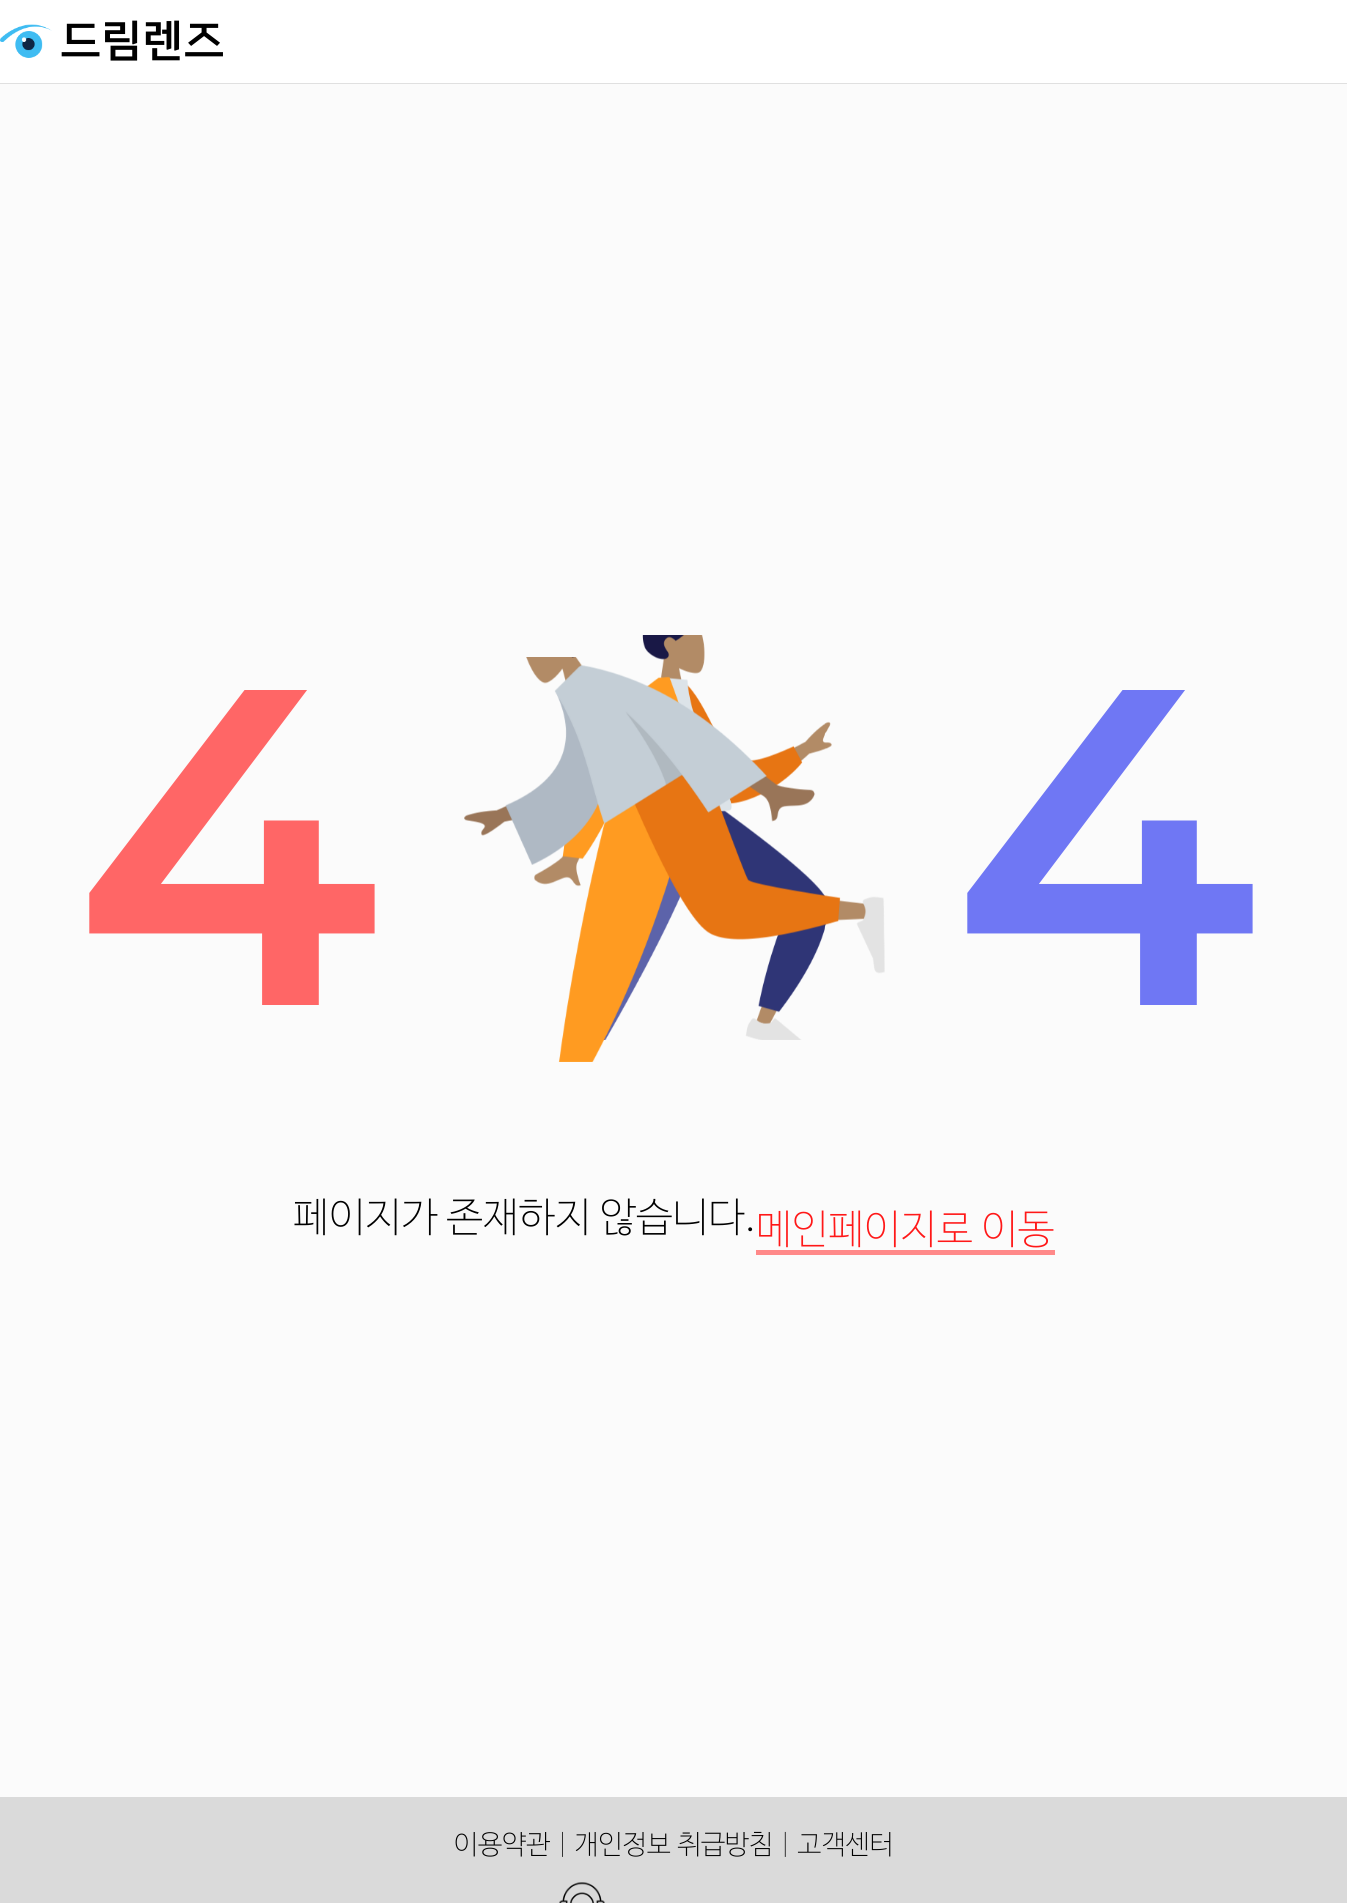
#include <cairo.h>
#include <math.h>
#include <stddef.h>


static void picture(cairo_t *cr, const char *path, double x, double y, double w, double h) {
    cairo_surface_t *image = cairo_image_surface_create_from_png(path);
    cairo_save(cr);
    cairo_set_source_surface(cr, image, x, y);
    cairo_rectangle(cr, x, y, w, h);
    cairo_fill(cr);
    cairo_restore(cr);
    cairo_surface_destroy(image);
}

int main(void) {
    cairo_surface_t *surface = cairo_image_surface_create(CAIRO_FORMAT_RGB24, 1347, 1903);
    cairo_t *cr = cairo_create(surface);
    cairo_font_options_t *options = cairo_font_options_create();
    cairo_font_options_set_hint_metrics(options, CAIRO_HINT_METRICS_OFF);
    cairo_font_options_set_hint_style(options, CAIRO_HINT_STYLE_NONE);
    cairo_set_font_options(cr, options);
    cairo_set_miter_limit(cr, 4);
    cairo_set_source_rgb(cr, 1, 1, 1);
    cairo_paint(cr);
    cairo_set_source_rgb(cr, 0.878, 0.878, 0.878);
    cairo_rectangle(cr, 0, 83, 1347, 1);
    cairo_fill(cr);
    picture(cr, "img1.png", 0, 24, 52, 34);
    cairo_select_font_face(cr, "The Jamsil", CAIRO_FONT_SLANT_NORMAL, CAIRO_FONT_WEIGHT_NORMAL);
    cairo_set_font_size(cr, 45);
    cairo_set_source_rgb(cr, 0, 0, 0);
    cairo_move_to(cr, 60, 55);
    cairo_show_text(cr, "드림렌즈");
    cairo_set_source_rgb(cr, 0.984, 0.984, 0.984);
    cairo_rectangle(cr, 0, 84, 1347, 1713);
    cairo_fill(cr);
    picture(cr, "img2.png", 534, 635, 298, 405);
    picture(cr, "img3.png", 464, 657, 421, 405);
    cairo_select_font_face(cr, "Montserrat SemiBold", CAIRO_FONT_SLANT_NORMAL, CAIRO_FONT_WEIGHT_NORMAL);
    cairo_set_font_size(cr, 450);
    cairo_set_source_rgb(cr, 1, 0.4, 0.4);
    cairo_move_to(cr, 74, 1005);
    cairo_show_text(cr, "4");
    cairo_set_source_rgb(cr, 0.435, 0.467, 0.957);
    cairo_move_to(cr, 952, 1005);
    cairo_show_text(cr, "4");
    cairo_select_font_face(cr, "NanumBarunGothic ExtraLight", CAIRO_FONT_SLANT_NORMAL, CAIRO_FONT_WEIGHT_NORMAL);
    cairo_set_font_size(cr, 40.5);
    cairo_set_source_rgb(cr, 0, 0, 0);
    cairo_move_to(cr, 293, 1230);
    cairo_show_text(cr, "페이지가 존재하지 않습니다.");
    cairo_set_source_rgb(cr, 1, 0.537, 0.537);
    cairo_rectangle(cr, 756, 1250, 299, 5);
    cairo_fill(cr);
    cairo_set_source_rgb(cr, 1, 0.094, 0.094);
    cairo_move_to(cr, 756, 1242);
    cairo_show_text(cr, "메인페이지로 이동");
    cairo_set_source_rgb(cr, 0.855, 0.855, 0.855);
    cairo_rectangle(cr, 0, 1797, 1347, 106);
    cairo_fill(cr);
    cairo_set_font_size(cr, 27);
    cairo_set_source_rgb(cr, 0, 0, 0);
    cairo_move_to(cr, 454, 1853);
    cairo_show_text(cr, "이용약관 | 개인정보 취급방침 | 고객센터");
    picture(cr, "img4.png", 559, 1882, 46, 21);
    cairo_surface_write_to_png(surface, "page.png");
    cairo_font_options_destroy(options);
    cairo_destroy(cr);
    cairo_surface_destroy(surface);
    return 0;
}
